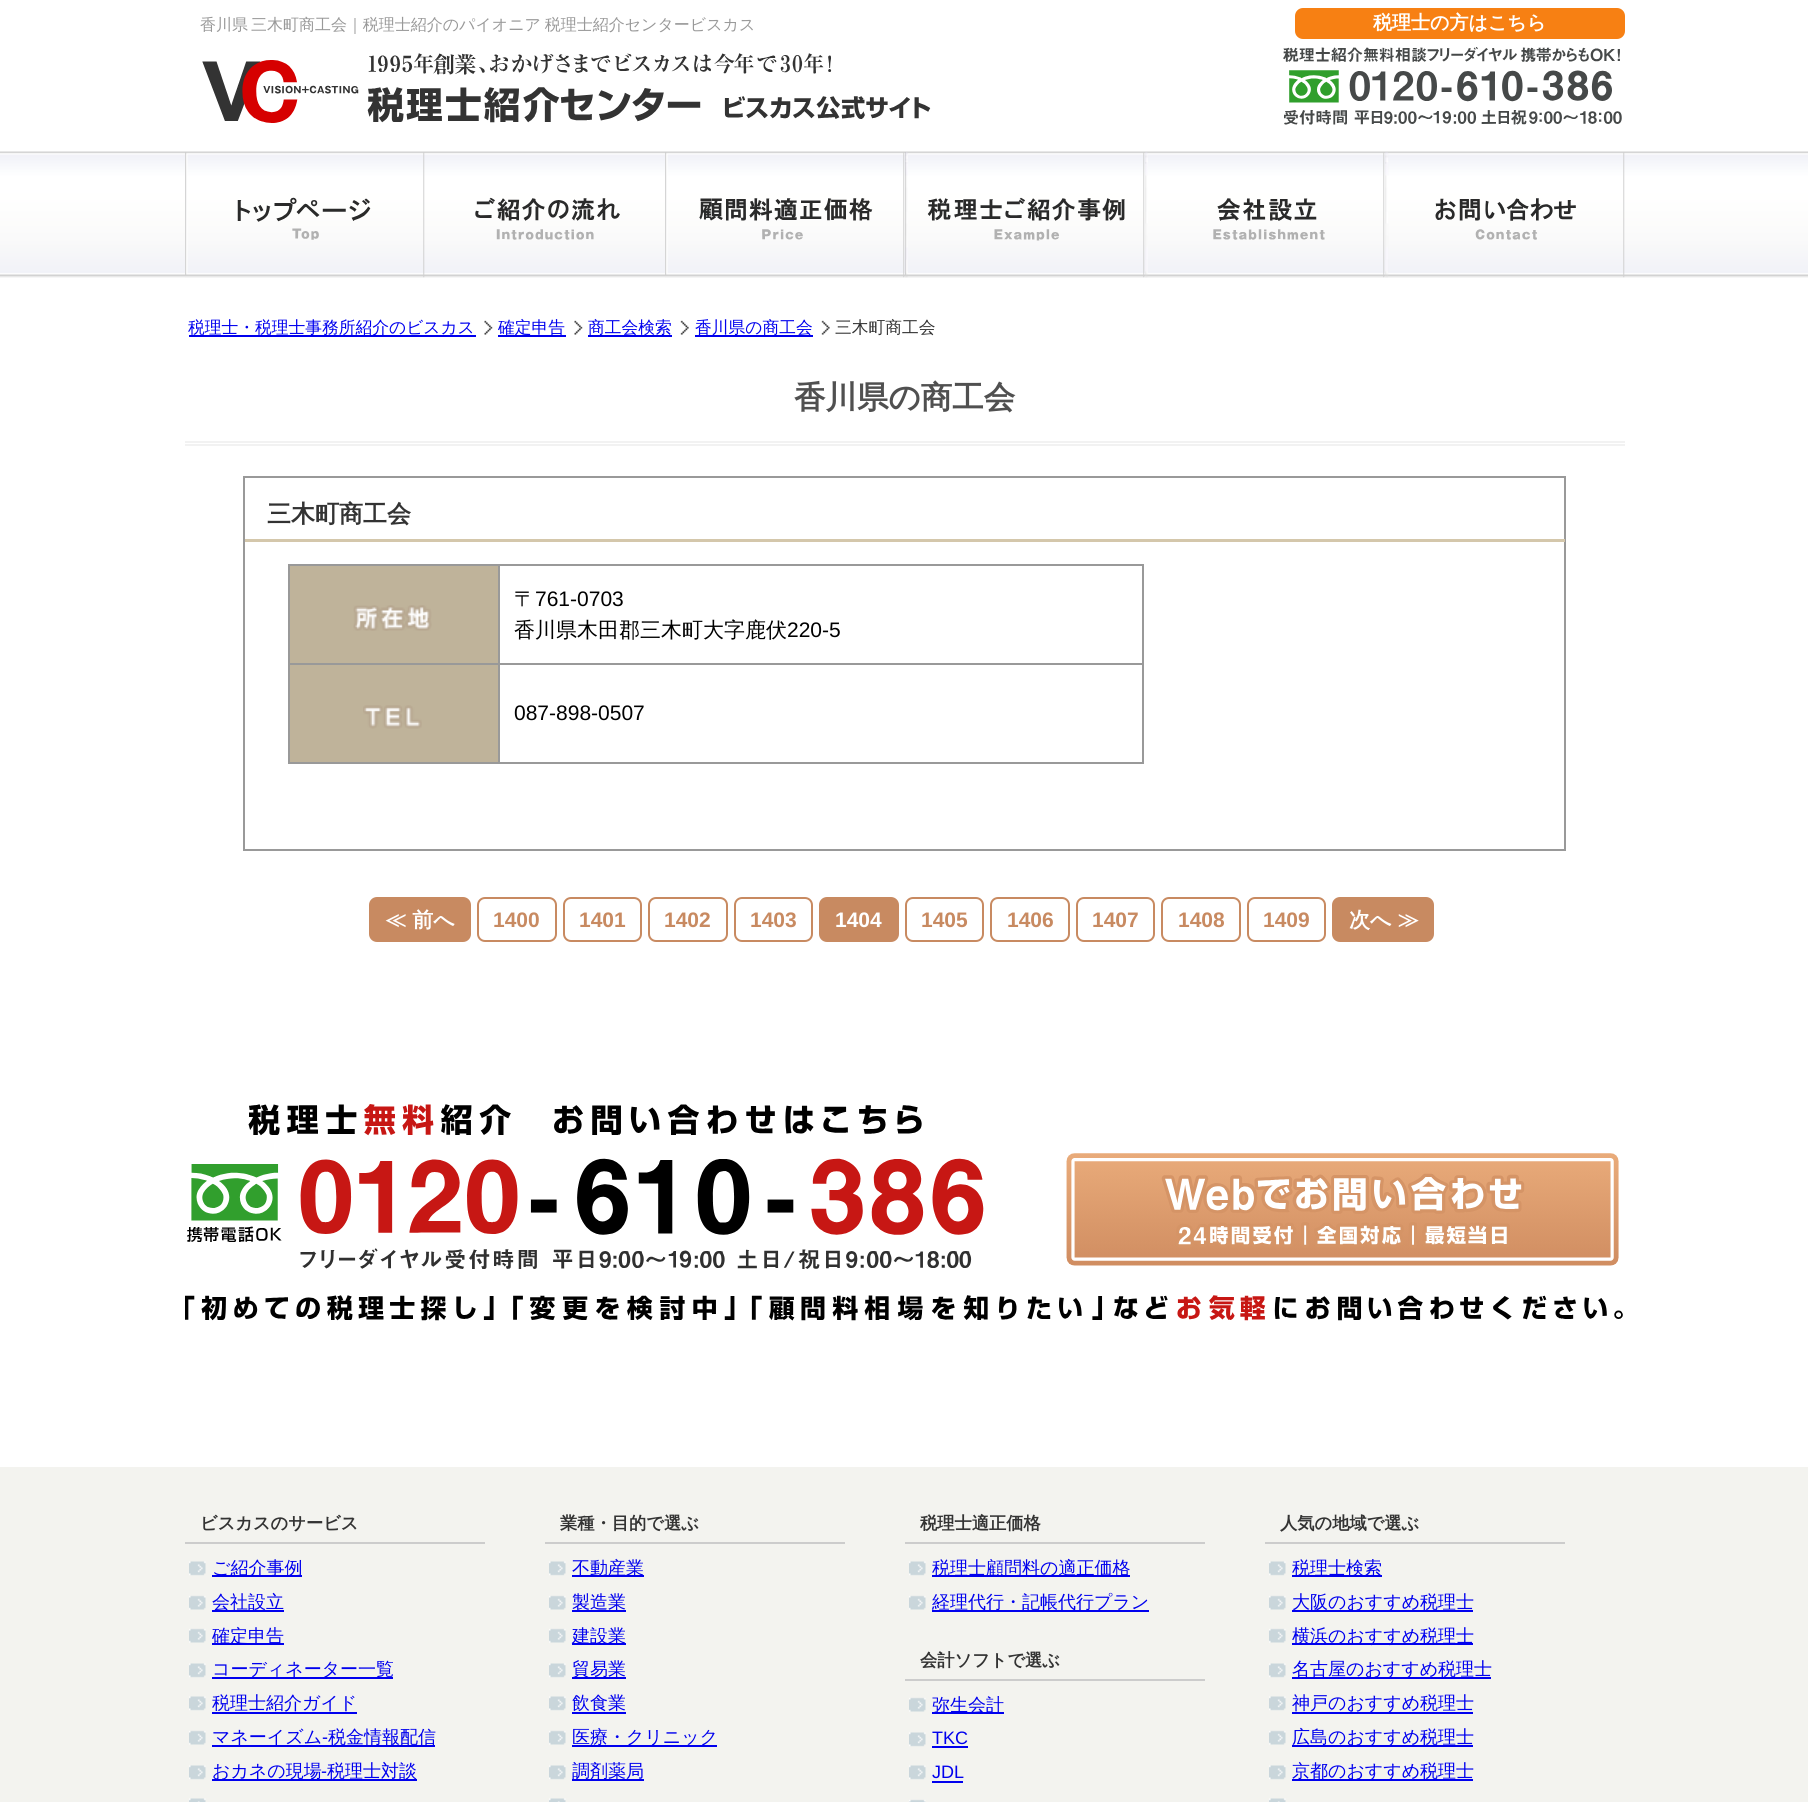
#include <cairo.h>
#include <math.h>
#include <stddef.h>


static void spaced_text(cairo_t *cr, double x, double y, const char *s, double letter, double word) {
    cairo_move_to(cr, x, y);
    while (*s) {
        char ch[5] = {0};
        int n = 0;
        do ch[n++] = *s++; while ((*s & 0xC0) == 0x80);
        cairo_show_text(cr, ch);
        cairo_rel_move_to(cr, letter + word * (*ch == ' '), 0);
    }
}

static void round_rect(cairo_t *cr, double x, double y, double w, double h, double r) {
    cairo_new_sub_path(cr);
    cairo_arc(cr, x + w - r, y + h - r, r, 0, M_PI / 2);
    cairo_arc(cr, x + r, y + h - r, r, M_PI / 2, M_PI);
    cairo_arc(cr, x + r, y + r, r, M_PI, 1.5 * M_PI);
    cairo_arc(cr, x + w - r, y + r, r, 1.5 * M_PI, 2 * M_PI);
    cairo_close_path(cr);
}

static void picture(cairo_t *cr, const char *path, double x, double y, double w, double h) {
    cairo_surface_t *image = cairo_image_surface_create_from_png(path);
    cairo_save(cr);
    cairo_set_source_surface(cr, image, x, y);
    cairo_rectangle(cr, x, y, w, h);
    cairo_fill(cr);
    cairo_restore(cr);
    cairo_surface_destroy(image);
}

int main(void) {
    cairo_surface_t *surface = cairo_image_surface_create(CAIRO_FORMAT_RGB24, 1808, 1802);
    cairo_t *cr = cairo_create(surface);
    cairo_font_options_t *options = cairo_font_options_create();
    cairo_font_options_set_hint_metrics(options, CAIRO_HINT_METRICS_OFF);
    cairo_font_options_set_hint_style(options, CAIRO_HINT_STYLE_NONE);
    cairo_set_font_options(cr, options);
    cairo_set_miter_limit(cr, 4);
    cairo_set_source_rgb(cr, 1, 1, 1);
    cairo_paint(cr);
    cairo_select_font_face(cr, "WenQuanYi Zen Hei Medium", CAIRO_FONT_SLANT_NORMAL, CAIRO_FONT_WEIGHT_NORMAL);
    cairo_set_font_size(cr, 16);
    cairo_set_source_rgb(cr, 0.6, 0.6, 0.6);
    cairo_move_to(cr, 200, 30);
    cairo_show_text(cr, "香川県");
    spaced_text(cr, 251, 30, "三木町商工会｜税理士紹介のパイオニア 税理士紹介センタービスカス", 0, -1);
    cairo_set_source_rgb(cr, 0.965, 0.502, 0.078);
    round_rect(cr, 1295, 8, 330, 31, 8);
    cairo_fill(cr);
    cairo_select_font_face(cr, "WenQuanYi Zen Hei", CAIRO_FONT_SLANT_NORMAL, CAIRO_FONT_WEIGHT_BOLD);
    cairo_set_font_size(cr, 19);
    cairo_set_source_rgb(cr, 1, 1, 1);
    cairo_move_to(cr, 1373, 29);
    cairo_show_text(cr, "税理士の方はこちら");
    picture(cr, "img1.png", 202, 53, 729, 70);
    picture(cr, "img2.png", 1283, 47, 339, 78);
    picture(cr, "img3.png", 0, 151, 1808, 127);
    picture(cr, "img4.png", 185, 152, 240, 126);
    picture(cr, "img5.png", 475, 197, 145, 43);
    picture(cr, "img6.png", 665, 152, 240, 126);
    picture(cr, "img7.png", 905, 152, 240, 126);
    picture(cr, "img8.png", 1145, 152, 240, 126);
    picture(cr, "img9.png", 1385, 152, 240, 126);
    cairo_set_source_rgb(cr, 0, 0, 0.933);
    cairo_rectangle(cr, 189, 335, 287, 2);
    cairo_fill(cr);
    cairo_select_font_face(cr, "WenQuanYi Zen Hei Medium", CAIRO_FONT_SLANT_NORMAL, CAIRO_FONT_WEIGHT_NORMAL);
    cairo_set_font_size(cr, 16.75);
    cairo_move_to(cr, 188, 333);
    cairo_show_text(cr, "税理士・税理士事務所紹介のビスカス");
    picture(cr, "img10.png", 484, 320, 9, 15);
    cairo_rectangle(cr, 498, 335, 68, 2);
    cairo_fill(cr);
    cairo_move_to(cr, 498, 333);
    cairo_show_text(cr, "確定申告");
    picture(cr, "img10.png", 574, 320, 9, 15);
    cairo_rectangle(cr, 588, 335, 84, 2);
    cairo_fill(cr);
    cairo_move_to(cr, 588, 333);
    cairo_show_text(cr, "商工会検索");
    picture(cr, "img11.png", 680, 320, 9, 15);
    cairo_rectangle(cr, 695, 335, 118, 2);
    cairo_fill(cr);
    cairo_move_to(cr, 695, 333);
    cairo_show_text(cr, "香川県の商工会");
    picture(cr, "img12.png", 821, 320, 9, 15);
    cairo_set_source_rgb(cr, 0.2, 0.2, 0.2);
    cairo_move_to(cr, 835, 333);
    cairo_show_text(cr, "三木町商工会");
    cairo_set_source_rgb(cr, 0.949, 0.949, 0.949);
    cairo_rectangle(cr, 185, 441, 1440, 2);
    cairo_fill(cr);
    cairo_rectangle(cr, 185, 444, 1440, 2);
    cairo_fill(cr);
    cairo_select_font_face(cr, "WenQuanYi Zen Hei", CAIRO_FONT_SLANT_NORMAL, CAIRO_FONT_WEIGHT_BOLD);
    cairo_set_font_size(cr, 31.5);
    cairo_set_source_rgb(cr, 0.314, 0.314, 0.314);
    cairo_move_to(cr, 794, 408);
    cairo_show_text(cr, "香川県の商工会");
    cairo_rectangle(cr, 244, 477, 1321, 373);
    cairo_set_source_rgb(cr, 0.6, 0.6, 0.6);
    cairo_stroke(cr);
    cairo_set_source_rgb(cr, 0.831, 0.78, 0.671);
    cairo_rectangle(cr, 245, 539, 1320, 3);
    cairo_fill(cr);
    cairo_set_font_size(cr, 24);
    cairo_set_source_rgb(cr, 0.2, 0.2, 0.2);
    cairo_move_to(cr, 267, 522);
    cairo_show_text(cr, "三木町商工会");
    cairo_set_source_rgb(cr, 0.749, 0.702, 0.604);
    cairo_rectangle(cr, 290, 566, 208, 97);
    cairo_fill(cr);
    cairo_set_source_rgb(cr, 0.6, 0.6, 0.6);
    cairo_rectangle(cr, 498, 564, 645, 2);
    cairo_fill(cr);
    cairo_rectangle(cr, 498, 663, 645, 2);
    cairo_fill(cr);
    cairo_rectangle(cr, 1142, 663, 2, 101);
    cairo_fill(cr);
    cairo_rectangle(cr, 498, 762, 645, 2);
    cairo_fill(cr);
    cairo_rectangle(cr, 498, 663, 2, 101);
    cairo_fill(cr);
    cairo_rectangle(cr, 288, 663, 212, 2);
    cairo_fill(cr);
    cairo_rectangle(cr, 498, 564, 2, 101);
    cairo_fill(cr);
    cairo_rectangle(cr, 288, 564, 212, 2);
    cairo_fill(cr);
    cairo_rectangle(cr, 288, 762, 212, 2);
    cairo_fill(cr);
    cairo_rectangle(cr, 288, 663, 2, 101);
    cairo_fill(cr);
    cairo_rectangle(cr, 288, 564, 2, 101);
    cairo_fill(cr);
    picture(cr, "img13.png", 353, 605, 79, 26);
    cairo_rectangle(cr, 1142, 564, 2, 101);
    cairo_fill(cr);
    cairo_select_font_face(cr, "WenQuanYi Zen Hei Medium", CAIRO_FONT_SLANT_NORMAL, CAIRO_FONT_WEIGHT_NORMAL);
    cairo_set_font_size(cr, 21);
    cairo_set_source_rgb(cr, 0, 0, 0);
    cairo_move_to(cr, 514, 606);
    cairo_show_text(cr, "〒");
    cairo_select_font_face(cr, "Liberation Sans", CAIRO_FONT_SLANT_NORMAL, CAIRO_FONT_WEIGHT_NORMAL);
    cairo_move_to(cr, 535, 606);
    cairo_show_text(cr, "761-0703");
    cairo_select_font_face(cr, "WenQuanYi Zen Hei Medium", CAIRO_FONT_SLANT_NORMAL, CAIRO_FONT_WEIGHT_NORMAL);
    cairo_move_to(cr, 514, 637);
    cairo_show_text(cr, "香川県木田郡三木町大字鹿伏");
    cairo_select_font_face(cr, "Liberation Sans", CAIRO_FONT_SLANT_NORMAL, CAIRO_FONT_WEIGHT_NORMAL);
    cairo_move_to(cr, 787, 637);
    cairo_show_text(cr, "220-5");
    cairo_set_source_rgb(cr, 0.749, 0.702, 0.604);
    cairo_rectangle(cr, 290, 665, 208, 97);
    cairo_fill(cr);
    picture(cr, "img14.png", 363, 705, 59, 24);
    cairo_set_source_rgb(cr, 0, 0, 0);
    cairo_move_to(cr, 514, 720);
    cairo_show_text(cr, "087-898-0507");
    cairo_set_source_rgb(cr, 0.784, 0.541, 0.38);
    round_rect(cr, 370, 898, 100, 43, 7);
    cairo_fill_preserve(cr);
    cairo_stroke(cr);
    cairo_select_font_face(cr, "WenQuanYi Zen Hei", CAIRO_FONT_SLANT_NORMAL, CAIRO_FONT_WEIGHT_BOLD);
    cairo_set_source_rgb(cr, 1, 1, 1);
    cairo_move_to(cr, 385, 927);
    cairo_show_text(cr, "≪ 前へ");
    round_rect(cr, 478, 898, 78, 43, 7);
    cairo_set_source_rgb(cr, 0.784, 0.541, 0.38);
    cairo_stroke(cr);
    cairo_select_font_face(cr, "Liberation Sans", CAIRO_FONT_SLANT_NORMAL, CAIRO_FONT_WEIGHT_BOLD);
    cairo_move_to(cr, 493, 927);
    cairo_show_text(cr, "1400");
    round_rect(cr, 564, 898, 77, 43, 7);
    cairo_stroke(cr);
    cairo_move_to(cr, 579, 927);
    cairo_show_text(cr, "1401");
    round_rect(cr, 649, 898, 78, 43, 7);
    cairo_stroke(cr);
    cairo_move_to(cr, 664, 927);
    cairo_show_text(cr, "1402");
    round_rect(cr, 735, 898, 77, 43, 7);
    cairo_stroke(cr);
    cairo_move_to(cr, 750, 927);
    cairo_show_text(cr, "1403");
    round_rect(cr, 820, 898, 78, 43, 7);
    cairo_fill_preserve(cr);
    cairo_stroke(cr);
    cairo_set_source_rgb(cr, 1, 1, 1);
    cairo_move_to(cr, 835, 927);
    cairo_show_text(cr, "1404");
    round_rect(cr, 906, 898, 77, 43, 7);
    cairo_set_source_rgb(cr, 0.784, 0.541, 0.38);
    cairo_stroke(cr);
    cairo_move_to(cr, 921, 927);
    cairo_show_text(cr, "1405");
    round_rect(cr, 991, 898, 78, 43, 7);
    cairo_stroke(cr);
    cairo_move_to(cr, 1007, 927);
    cairo_show_text(cr, "1406");
    round_rect(cr, 1077, 898, 77, 43, 7);
    cairo_stroke(cr);
    cairo_move_to(cr, 1092, 927);
    cairo_show_text(cr, "1407");
    round_rect(cr, 1162, 898, 78, 43, 7);
    cairo_stroke(cr);
    cairo_move_to(cr, 1178, 927);
    cairo_show_text(cr, "1408");
    round_rect(cr, 1248, 898, 77, 43, 7);
    cairo_stroke(cr);
    cairo_move_to(cr, 1263, 927);
    cairo_show_text(cr, "1409");
    round_rect(cr, 1333, 898, 100, 43, 7);
    cairo_fill_preserve(cr);
    cairo_stroke(cr);
    cairo_select_font_face(cr, "WenQuanYi Zen Hei", CAIRO_FONT_SLANT_NORMAL, CAIRO_FONT_WEIGHT_BOLD);
    cairo_set_source_rgb(cr, 1, 1, 1);
    cairo_move_to(cr, 1349, 927);
    cairo_show_text(cr, "次へ ≫");
    picture(cr, "img15.png", 185, 1104, 1438, 217);
    cairo_set_source_rgb(cr, 0.953, 0.953, 0.937);
    cairo_rectangle(cr, 0, 1467, 1808, 335);
    cairo_fill(cr);
    cairo_set_source_rgb(cr, 0.8, 0.8, 0.8);
    cairo_rectangle(cr, 185, 1542, 300, 2);
    cairo_fill(cr);
    cairo_set_font_size(cr, 17.25);
    cairo_set_source_rgb(cr, 0.2, 0.2, 0.2);
    cairo_move_to(cr, 200, 1529);
    cairo_show_text(cr, "ビスカスのサービス");
    picture(cr, "img16.png", 189, 1561, 17, 15);
    cairo_set_source_rgb(cr, 0, 0, 0.933);
    cairo_rectangle(cr, 212, 1575, 90, 2);
    cairo_fill(cr);
    cairo_select_font_face(cr, "WenQuanYi Zen Hei Medium", CAIRO_FONT_SLANT_NORMAL, CAIRO_FONT_WEIGHT_NORMAL);
    cairo_set_font_size(cr, 18);
    cairo_move_to(cr, 212, 1574);
    cairo_show_text(cr, "ご紹介事例");
    picture(cr, "img17.png", 189, 1595, 17, 15);
    cairo_rectangle(cr, 212, 1610, 72, 2);
    cairo_fill(cr);
    cairo_move_to(cr, 212, 1608);
    cairo_show_text(cr, "会社設立");
    picture(cr, "img17.png", 189, 1628, 17, 15);
    cairo_rectangle(cr, 212, 1643, 72, 2);
    cairo_fill(cr);
    cairo_move_to(cr, 212, 1642);
    cairo_show_text(cr, "確定申告");
    picture(cr, "img16.png", 189, 1663, 17, 15);
    cairo_rectangle(cr, 212, 1677, 181, 2);
    cairo_fill(cr);
    cairo_move_to(cr, 212, 1675);
    cairo_show_text(cr, "コーディネーター一覧");
    picture(cr, "img16.png", 189, 1696, 17, 15);
    cairo_move_to(cr, 212, 1709);
    cairo_show_text(cr, "税理士紹介ガイド");
    cairo_rectangle(cr, 212, 1712, 145, 2);
    cairo_fill(cr);
    picture(cr, "img17.png", 189, 1730, 17, 15);
    cairo_rectangle(cr, 212, 1745, 223, 2);
    cairo_fill(cr);
    cairo_move_to(cr, 212, 1743);
    cairo_show_text(cr, "マネーイズム");
    cairo_select_font_face(cr, "Liberation Sans", CAIRO_FONT_SLANT_NORMAL, CAIRO_FONT_WEIGHT_NORMAL);
    cairo_move_to(cr, 322, 1743);
    cairo_show_text(cr, "-");
    cairo_select_font_face(cr, "WenQuanYi Zen Hei Medium", CAIRO_FONT_SLANT_NORMAL, CAIRO_FONT_WEIGHT_NORMAL);
    cairo_move_to(cr, 328, 1743);
    cairo_show_text(cr, "税金情報配信");
    picture(cr, "img16.png", 189, 1765, 17, 15);
    cairo_rectangle(cr, 212, 1779, 205, 2);
    cairo_fill(cr);
    cairo_move_to(cr, 212, 1777);
    cairo_show_text(cr, "おカネの現場");
    cairo_select_font_face(cr, "Liberation Sans", CAIRO_FONT_SLANT_NORMAL, CAIRO_FONT_WEIGHT_NORMAL);
    cairo_move_to(cr, 321, 1777);
    cairo_show_text(cr, "-");
    cairo_select_font_face(cr, "WenQuanYi Zen Hei Medium", CAIRO_FONT_SLANT_NORMAL, CAIRO_FONT_WEIGHT_NORMAL);
    cairo_move_to(cr, 327, 1777);
    cairo_show_text(cr, "税理士対談");
    picture(cr, "img18.png", 189, 1798, 17, 4);
    cairo_set_source_rgb(cr, 0.8, 0.8, 0.8);
    cairo_rectangle(cr, 545, 1542, 300, 2);
    cairo_fill(cr);
    cairo_select_font_face(cr, "WenQuanYi Zen Hei", CAIRO_FONT_SLANT_NORMAL, CAIRO_FONT_WEIGHT_BOLD);
    cairo_set_font_size(cr, 17.25);
    cairo_set_source_rgb(cr, 0.2, 0.2, 0.2);
    cairo_move_to(cr, 560, 1529);
    cairo_show_text(cr, "業種・目的で選ぶ");
    picture(cr, "img16.png", 549, 1561, 17, 15);
    cairo_set_source_rgb(cr, 0, 0, 0.933);
    cairo_rectangle(cr, 572, 1575, 72, 2);
    cairo_fill(cr);
    cairo_select_font_face(cr, "WenQuanYi Zen Hei Medium", CAIRO_FONT_SLANT_NORMAL, CAIRO_FONT_WEIGHT_NORMAL);
    cairo_set_font_size(cr, 18);
    cairo_move_to(cr, 572, 1574);
    cairo_show_text(cr, "不動産業");
    picture(cr, "img17.png", 549, 1595, 17, 15);
    cairo_rectangle(cr, 572, 1610, 54, 2);
    cairo_fill(cr);
    cairo_move_to(cr, 572, 1608);
    cairo_show_text(cr, "製造業");
    picture(cr, "img17.png", 549, 1628, 17, 15);
    cairo_rectangle(cr, 572, 1643, 54, 2);
    cairo_fill(cr);
    cairo_move_to(cr, 572, 1642);
    cairo_show_text(cr, "建設業");
    picture(cr, "img16.png", 549, 1663, 17, 15);
    cairo_rectangle(cr, 572, 1677, 54, 2);
    cairo_fill(cr);
    cairo_move_to(cr, 572, 1675);
    cairo_show_text(cr, "貿易業");
    picture(cr, "img16.png", 549, 1696, 17, 15);
    cairo_move_to(cr, 572, 1709);
    cairo_show_text(cr, "飲食業");
    cairo_rectangle(cr, 572, 1712, 54, 2);
    cairo_fill(cr);
    picture(cr, "img17.png", 549, 1730, 17, 15);
    cairo_rectangle(cr, 572, 1745, 145, 2);
    cairo_fill(cr);
    cairo_move_to(cr, 572, 1743);
    cairo_show_text(cr, "医療・クリニック");
    picture(cr, "img16.png", 549, 1765, 17, 15);
    cairo_rectangle(cr, 572, 1779, 72, 2);
    cairo_fill(cr);
    cairo_move_to(cr, 572, 1777);
    cairo_show_text(cr, "調剤薬局");
    picture(cr, "img18.png", 549, 1798, 17, 4);
    cairo_set_source_rgb(cr, 0.8, 0.8, 0.8);
    cairo_rectangle(cr, 905, 1542, 300, 2);
    cairo_fill(cr);
    cairo_select_font_face(cr, "WenQuanYi Zen Hei", CAIRO_FONT_SLANT_NORMAL, CAIRO_FONT_WEIGHT_BOLD);
    cairo_set_font_size(cr, 17.25);
    cairo_set_source_rgb(cr, 0.2, 0.2, 0.2);
    cairo_move_to(cr, 920, 1529);
    cairo_show_text(cr, "税理士適正価格");
    picture(cr, "img16.png", 909, 1561, 17, 15);
    cairo_set_source_rgb(cr, 0, 0, 0.933);
    cairo_rectangle(cr, 932, 1575, 198, 2);
    cairo_fill(cr);
    cairo_select_font_face(cr, "WenQuanYi Zen Hei Medium", CAIRO_FONT_SLANT_NORMAL, CAIRO_FONT_WEIGHT_NORMAL);
    cairo_set_font_size(cr, 18);
    cairo_move_to(cr, 932, 1574);
    cairo_show_text(cr, "税理士顧問料の適正価格");
    picture(cr, "img17.png", 909, 1595, 17, 15);
    cairo_rectangle(cr, 932, 1610, 217, 2);
    cairo_fill(cr);
    cairo_move_to(cr, 932, 1608);
    cairo_show_text(cr, "経理代行・記帳代行プラン");
    cairo_set_source_rgb(cr, 0.8, 0.8, 0.8);
    cairo_rectangle(cr, 905, 1679, 300, 2);
    cairo_fill(cr);
    cairo_select_font_face(cr, "WenQuanYi Zen Hei", CAIRO_FONT_SLANT_NORMAL, CAIRO_FONT_WEIGHT_BOLD);
    cairo_set_font_size(cr, 17.25);
    cairo_set_source_rgb(cr, 0.2, 0.2, 0.2);
    cairo_move_to(cr, 920, 1666);
    cairo_show_text(cr, "会計ソフトで選ぶ");
    picture(cr, "img17.png", 909, 1697, 17, 15);
    cairo_set_source_rgb(cr, 0, 0, 0.933);
    cairo_rectangle(cr, 932, 1712, 72, 2);
    cairo_fill(cr);
    cairo_select_font_face(cr, "WenQuanYi Zen Hei Medium", CAIRO_FONT_SLANT_NORMAL, CAIRO_FONT_WEIGHT_NORMAL);
    cairo_set_font_size(cr, 18);
    cairo_move_to(cr, 932, 1711);
    cairo_show_text(cr, "弥生会計");
    picture(cr, "img16.png", 909, 1732, 17, 15);
    cairo_select_font_face(cr, "Liberation Sans", CAIRO_FONT_SLANT_NORMAL, CAIRO_FONT_WEIGHT_NORMAL);
    cairo_move_to(cr, 932, 1744);
    cairo_show_text(cr, "TKC");
    cairo_rectangle(cr, 932, 1746, 36, 2);
    cairo_fill(cr);
    picture(cr, "img16.png", 909, 1765, 17, 15);
    cairo_move_to(cr, 932, 1778);
    cairo_show_text(cr, "JDL");
    cairo_rectangle(cr, 932, 1781, 31, 2);
    cairo_fill(cr);
    picture(cr, "img19.png", 909, 1799, 17, 3);
    cairo_set_source_rgb(cr, 0.8, 0.8, 0.8);
    cairo_rectangle(cr, 1265, 1542, 300, 2);
    cairo_fill(cr);
    cairo_select_font_face(cr, "WenQuanYi Zen Hei", CAIRO_FONT_SLANT_NORMAL, CAIRO_FONT_WEIGHT_BOLD);
    cairo_set_font_size(cr, 17.25);
    cairo_set_source_rgb(cr, 0.2, 0.2, 0.2);
    cairo_move_to(cr, 1280, 1529);
    cairo_show_text(cr, "人気の地域で選ぶ");
    picture(cr, "img20.png", 1269, 1561, 17, 15);
    cairo_set_source_rgb(cr, 0, 0, 0.933);
    cairo_rectangle(cr, 1292, 1575, 90, 2);
    cairo_fill(cr);
    cairo_select_font_face(cr, "WenQuanYi Zen Hei Medium", CAIRO_FONT_SLANT_NORMAL, CAIRO_FONT_WEIGHT_NORMAL);
    cairo_set_font_size(cr, 18);
    cairo_move_to(cr, 1292, 1574);
    cairo_show_text(cr, "税理士検索");
    picture(cr, "img21.png", 1269, 1595, 17, 15);
    cairo_rectangle(cr, 1292, 1610, 181, 2);
    cairo_fill(cr);
    cairo_move_to(cr, 1292, 1608);
    cairo_show_text(cr, "大阪のおすすめ税理士");
    picture(cr, "img21.png", 1269, 1628, 17, 15);
    cairo_rectangle(cr, 1292, 1643, 181, 2);
    cairo_fill(cr);
    cairo_move_to(cr, 1292, 1642);
    cairo_show_text(cr, "横浜のおすすめ税理士");
    picture(cr, "img20.png", 1269, 1663, 17, 15);
    cairo_rectangle(cr, 1292, 1677, 199, 2);
    cairo_fill(cr);
    cairo_move_to(cr, 1292, 1675);
    cairo_show_text(cr, "名古屋のおすすめ税理士");
    picture(cr, "img20.png", 1269, 1696, 17, 15);
    cairo_rectangle(cr, 1292, 1712, 181, 2);
    cairo_fill(cr);
    cairo_move_to(cr, 1292, 1709);
    cairo_show_text(cr, "神戸のおすすめ税理士");
    picture(cr, "img21.png", 1269, 1730, 17, 15);
    cairo_rectangle(cr, 1292, 1745, 181, 2);
    cairo_fill(cr);
    cairo_move_to(cr, 1292, 1743);
    cairo_show_text(cr, "広島のおすすめ税理士");
    picture(cr, "img20.png", 1269, 1765, 17, 15);
    cairo_rectangle(cr, 1292, 1779, 181, 2);
    cairo_fill(cr);
    cairo_move_to(cr, 1292, 1777);
    cairo_show_text(cr, "京都のおすすめ税理士");
    picture(cr, "img22.png", 1269, 1798, 17, 4);
    cairo_surface_write_to_png(surface, "page.png");
    cairo_font_options_destroy(options);
    cairo_destroy(cr);
    cairo_surface_destroy(surface);
    return 0;
}
